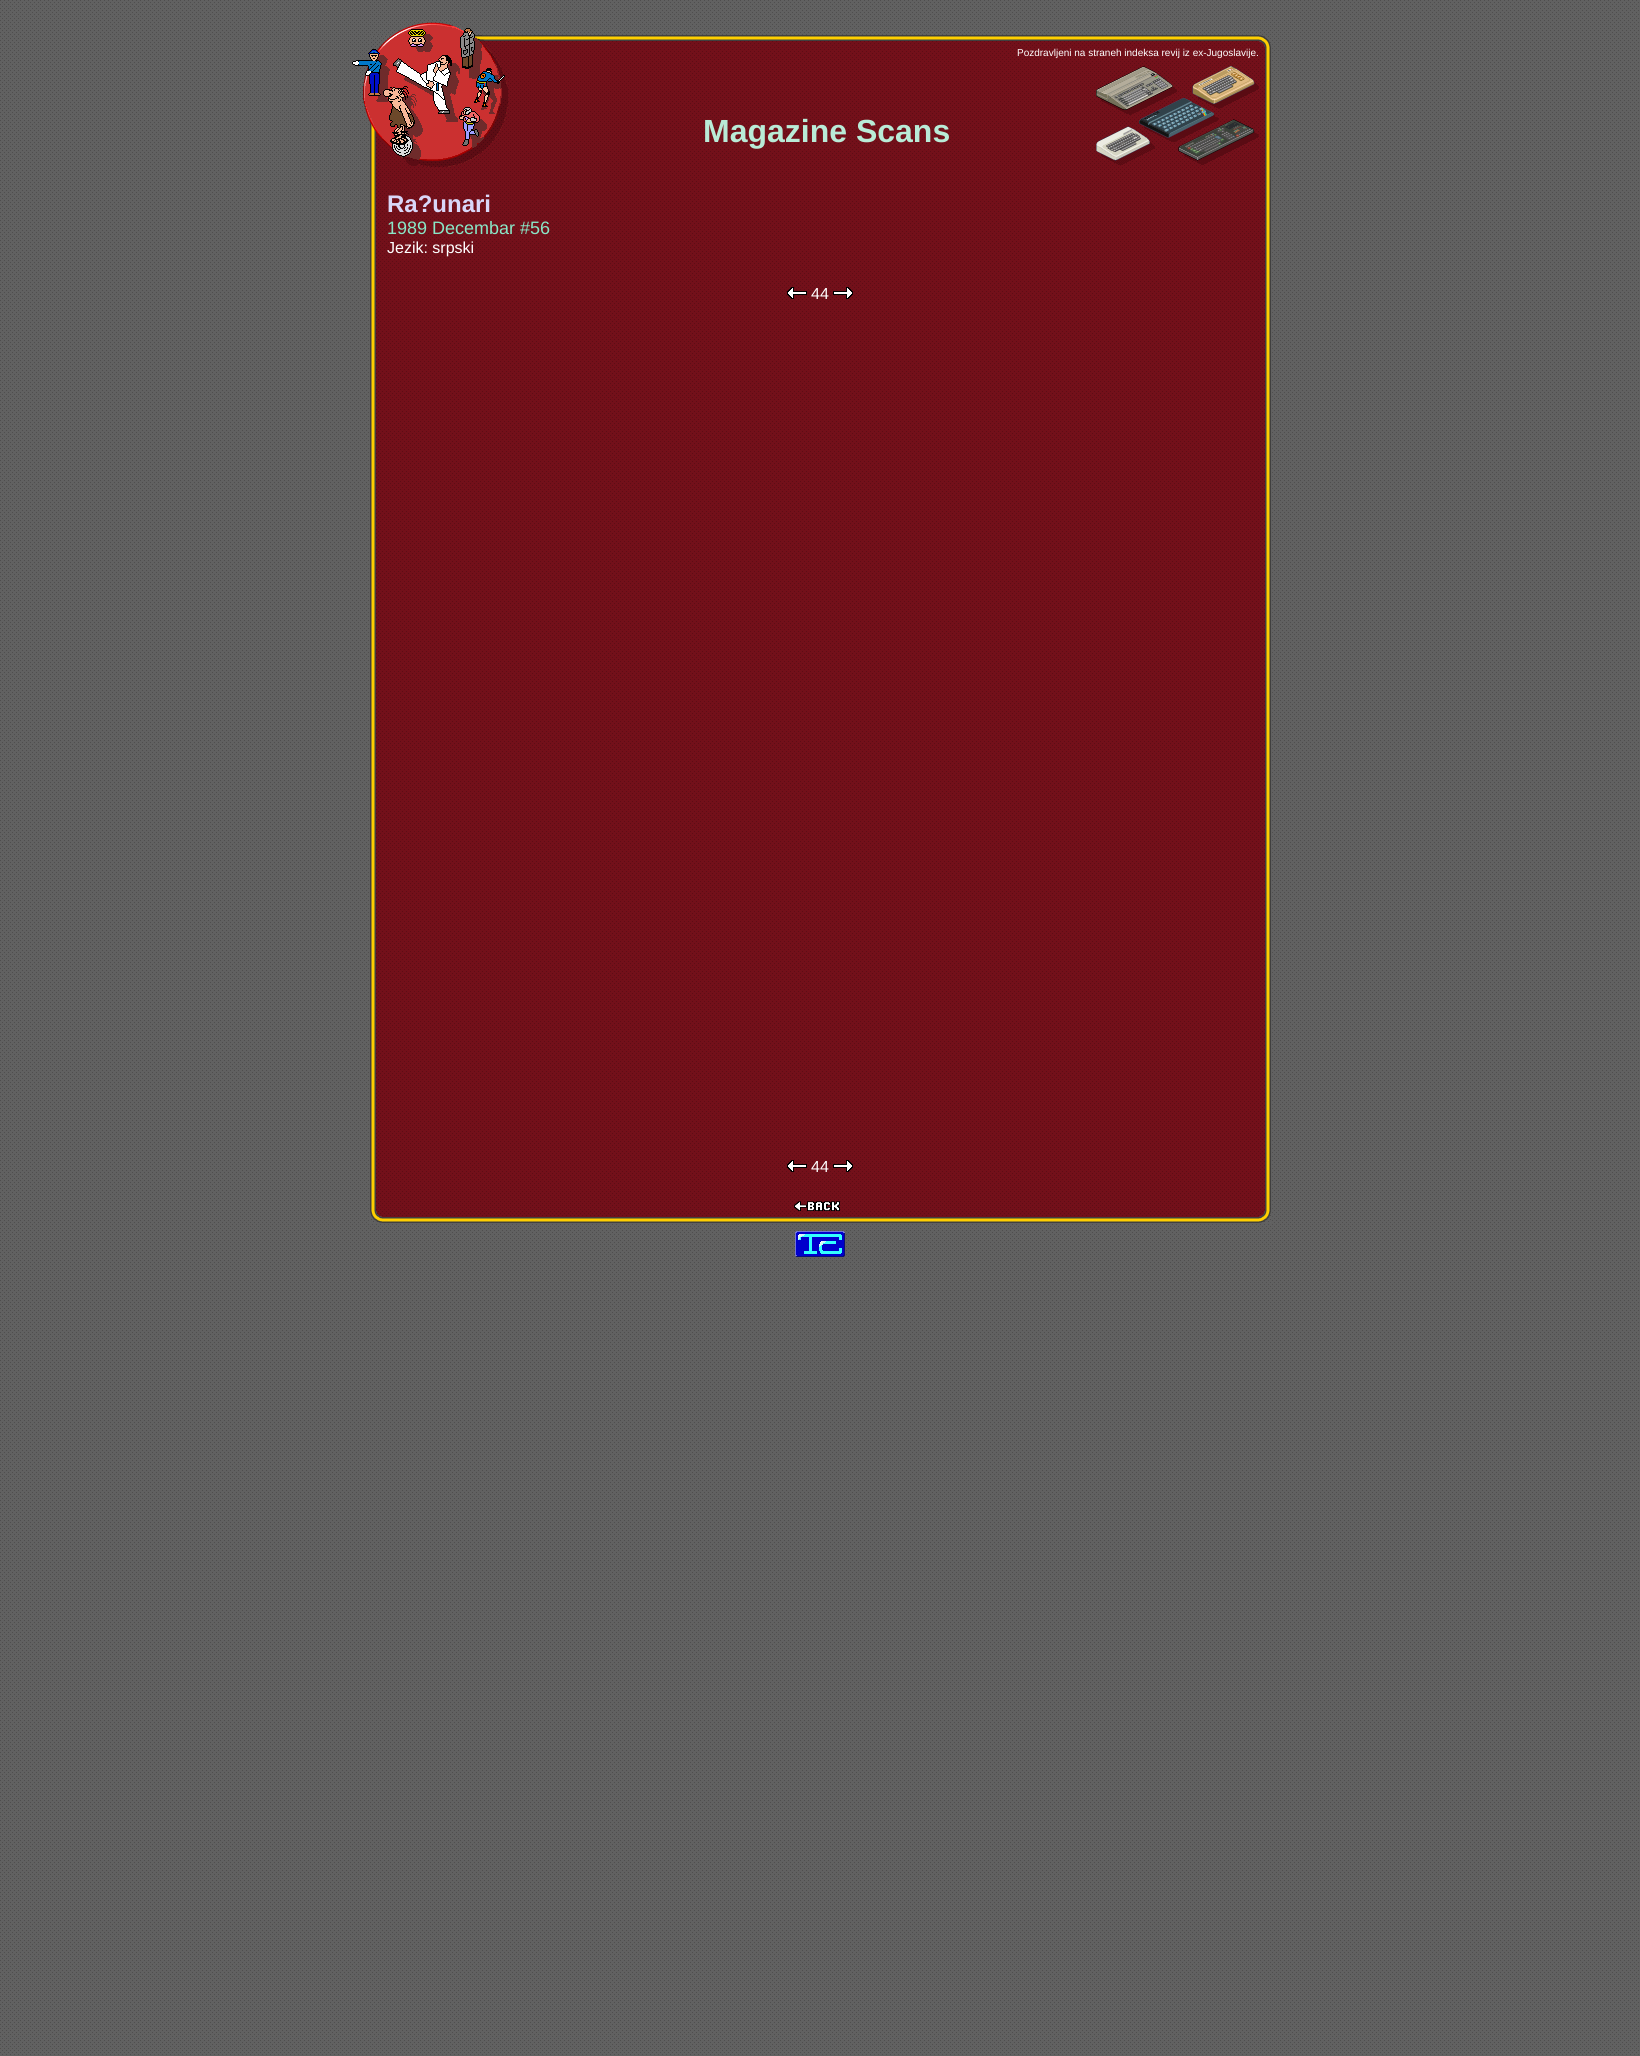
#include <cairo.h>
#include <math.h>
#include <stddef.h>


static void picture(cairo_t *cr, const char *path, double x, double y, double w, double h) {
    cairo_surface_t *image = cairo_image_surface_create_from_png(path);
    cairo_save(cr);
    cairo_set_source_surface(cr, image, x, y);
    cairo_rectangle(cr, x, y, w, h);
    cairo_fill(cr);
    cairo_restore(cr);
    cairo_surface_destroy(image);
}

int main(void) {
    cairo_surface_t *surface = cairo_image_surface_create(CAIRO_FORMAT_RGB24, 1640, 2056);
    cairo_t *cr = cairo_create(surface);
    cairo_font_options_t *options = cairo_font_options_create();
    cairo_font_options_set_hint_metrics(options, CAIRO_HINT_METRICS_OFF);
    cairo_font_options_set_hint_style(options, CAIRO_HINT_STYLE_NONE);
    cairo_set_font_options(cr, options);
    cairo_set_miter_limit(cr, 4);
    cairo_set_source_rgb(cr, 0.38, 0.38, 0.38);
    cairo_paint(cr);
    picture(cr, "img1.png", 0, 0, 1639, 2055);
    picture(cr, "img2.png", 393, 22, 82, 13);
    picture(cr, "img3.png", 352, 52, 18, 70);
    picture(cr, "img4.png", 376, 41, 889, 1176);
    picture(cr, "img5.png", 370, 35, 12, 12);
    picture(cr, "img6.png", 486, 35, 773, 6);
    picture(cr, "img7.png", 382, 35, 104, 12);
    picture(cr, "img8.png", 1259, 35, 12, 12);
    picture(cr, "img9.png", 370, 139, 6, 1072);
    picture(cr, "img10.png", 370, 47, 12, 92);
    picture(cr, "img11.png", 382, 47, 126, 120);
    cairo_select_font_face(cr, "Liberation Sans", CAIRO_FONT_SLANT_NORMAL, CAIRO_FONT_WEIGHT_NORMAL);
    cairo_set_font_size(cr, 10);
    cairo_set_source_rgb(cr, 1, 1, 1);
    cairo_move_to(cr, 1017, 56);
    cairo_show_text(cr, "Pozdravljeni na straneh indeksa revij iz ex-Jugoslavije.");
    cairo_select_font_face(cr, "Liberation Sans", CAIRO_FONT_SLANT_NORMAL, CAIRO_FONT_WEIGHT_BOLD);
    cairo_set_font_size(cr, 32);
    cairo_set_source_rgb(cr, 0.725, 0.918, 0.843);
    cairo_move_to(cr, 703, 142);
    cairo_show_text(cr, "Magazine Scans");
    picture(cr, "img12.png", 1096, 66, 163, 99);
    cairo_set_font_size(cr, 24);
    cairo_set_source_rgb(cr, 0.851, 0.843, 0.969);
    cairo_move_to(cr, 387, 212);
    cairo_show_text(cr, "Ra?unari");
    cairo_select_font_face(cr, "Liberation Sans", CAIRO_FONT_SLANT_NORMAL, CAIRO_FONT_WEIGHT_NORMAL);
    cairo_set_font_size(cr, 18);
    cairo_set_source_rgb(cr, 0.537, 0.906, 0.78);
    cairo_move_to(cr, 387, 234);
    cairo_show_text(cr, "1989 Decembar #56");
    cairo_set_font_size(cr, 16);
    cairo_set_source_rgb(cr, 1, 1, 1);
    cairo_move_to(cr, 387, 253);
    cairo_show_text(cr, "Jezik: srpski");
    picture(cr, "img13.png", 787, 287, 20, 12);
    cairo_move_to(cr, 811, 299);
    cairo_show_text(cr, "44");
    picture(cr, "img14.png", 833, 287, 20, 12);
    picture(cr, "img15.png", 787, 1160, 20, 12);
    cairo_move_to(cr, 811, 1172);
    cairo_show_text(cr, "44");
    picture(cr, "img16.png", 833, 1160, 20, 12);
    picture(cr, "img17.png", 794, 1201, 46, 10);
    picture(cr, "img18.png", 1265, 47, 6, 1164);
    picture(cr, "img19.png", 370, 1211, 12, 12);
    picture(cr, "img20.png", 382, 1217, 877, 6);
    picture(cr, "img21.png", 1259, 1211, 12, 12);
    picture(cr, "img22.png", 795, 1231, 50, 26);
    cairo_surface_write_to_png(surface, "page.png");
    cairo_font_options_destroy(options);
    cairo_destroy(cr);
    cairo_surface_destroy(surface);
    return 0;
}
